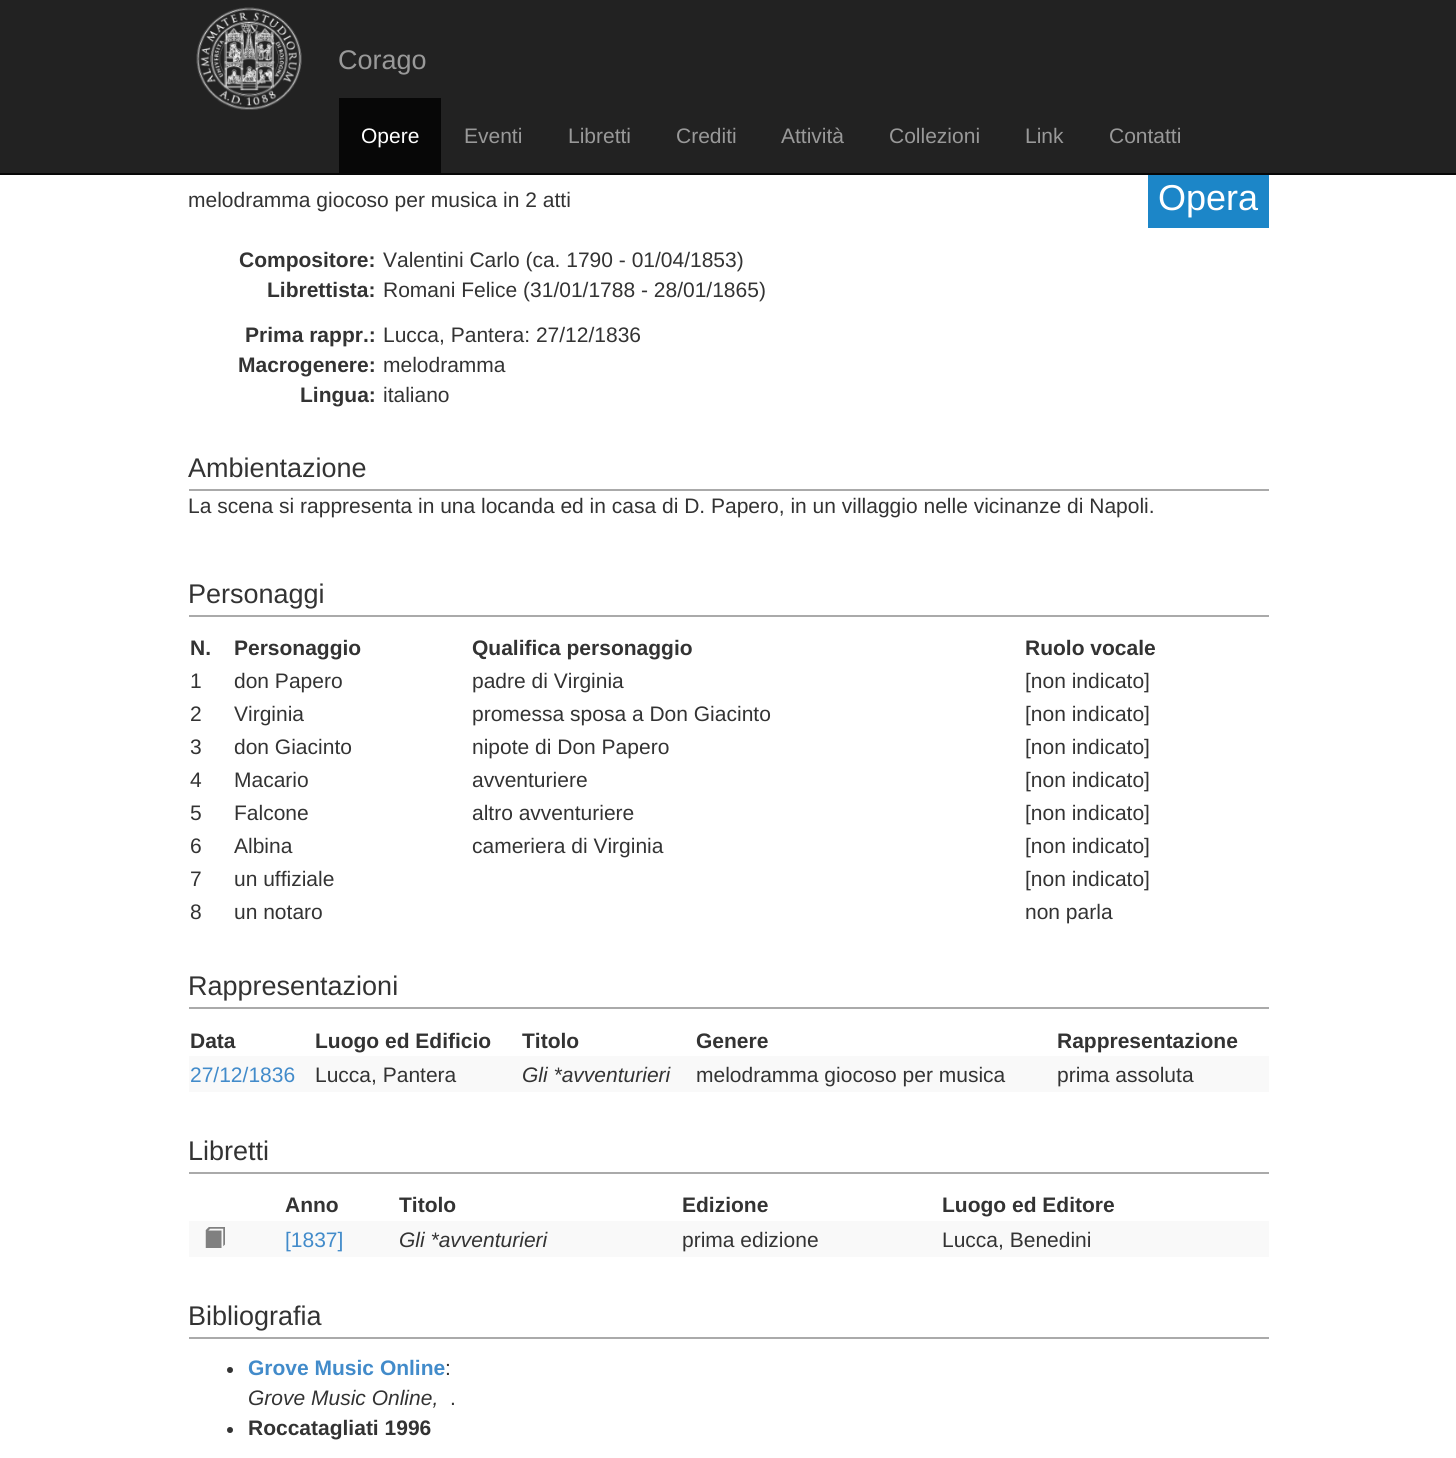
#include <cairo.h>
#include <math.h>
#include <stddef.h>


static void picture(cairo_t *cr, const char *path, double x, double y, double w, double h) {
    cairo_surface_t *image = cairo_image_surface_create_from_png(path);
    cairo_save(cr);
    cairo_set_source_surface(cr, image, x, y);
    cairo_rectangle(cr, x, y, w, h);
    cairo_fill(cr);
    cairo_restore(cr);
    cairo_surface_destroy(image);
}

int main(void) {
    cairo_surface_t *surface = cairo_image_surface_create(CAIRO_FORMAT_RGB24, 1456, 1458);
    cairo_t *cr = cairo_create(surface);
    cairo_font_options_t *options = cairo_font_options_create();
    cairo_font_options_set_hint_metrics(options, CAIRO_HINT_METRICS_OFF);
    cairo_font_options_set_hint_style(options, CAIRO_HINT_STYLE_NONE);
    cairo_set_font_options(cr, options);
    cairo_set_miter_limit(cr, 4);
    cairo_set_source_rgb(cr, 1, 1, 1);
    cairo_paint(cr);
    cairo_set_source_rgb(cr, 0.133, 0.133, 0.133);
    cairo_rectangle(cr, 0, 0, 1456, 173);
    cairo_fill(cr);
    cairo_set_source_rgb(cr, 0.031, 0.031, 0.031);
    cairo_rectangle(cr, 0, 173, 1456, 2);
    cairo_fill(cr);
    picture(cr, "img1.png", 196, 7, 106, 103);
    cairo_select_font_face(cr, "Liberation Sans", CAIRO_FONT_SLANT_NORMAL, CAIRO_FONT_WEIGHT_NORMAL);
    cairo_set_font_size(cr, 27);
    cairo_set_source_rgb(cr, 0.6, 0.6, 0.6);
    cairo_move_to(cr, 338, 69);
    cairo_show_text(cr, "Corago");
    cairo_set_source_rgb(cr, 0.031, 0.031, 0.031);
    cairo_rectangle(cr, 339, 98, 102, 75);
    cairo_fill(cr);
    cairo_set_font_size(cr, 21);
    cairo_set_source_rgb(cr, 1, 1, 1);
    cairo_move_to(cr, 361, 143);
    cairo_show_text(cr, "Opere");
    cairo_set_source_rgb(cr, 0.6, 0.6, 0.6);
    cairo_move_to(cr, 464, 143);
    cairo_show_text(cr, "Eventi");
    cairo_move_to(cr, 568, 143);
    cairo_show_text(cr, "Libretti");
    cairo_move_to(cr, 676, 143);
    cairo_show_text(cr, "Crediti");
    cairo_move_to(cr, 781, 143);
    cairo_show_text(cr, "Attività");
    cairo_move_to(cr, 889, 143);
    cairo_show_text(cr, "Collezioni");
    cairo_move_to(cr, 1025, 143);
    cairo_show_text(cr, "Link");
    cairo_move_to(cr, 1109, 143);
    cairo_show_text(cr, "Contatti");
    cairo_set_source_rgb(cr, 0.2, 0.2, 0.2);
    cairo_move_to(cr, 188, 207);
    cairo_show_text(cr, "melodramma giocoso per musica in 2 atti");
    cairo_set_source_rgb(cr, 0.11, 0.525, 0.784);
    cairo_rectangle(cr, 1148, 175, 121, 53);
    cairo_fill(cr);
    cairo_set_font_size(cr, 36);
    cairo_set_source_rgb(cr, 1, 1, 1);
    cairo_move_to(cr, 1158, 210);
    cairo_show_text(cr, "Opera");
    cairo_select_font_face(cr, "Liberation Sans", CAIRO_FONT_SLANT_NORMAL, CAIRO_FONT_WEIGHT_BOLD);
    cairo_set_font_size(cr, 21);
    cairo_set_source_rgb(cr, 0.2, 0.2, 0.2);
    cairo_move_to(cr, 239, 267);
    cairo_show_text(cr, "Compositore:");
    cairo_select_font_face(cr, "Liberation Sans", CAIRO_FONT_SLANT_NORMAL, CAIRO_FONT_WEIGHT_NORMAL);
    cairo_move_to(cr, 383, 267);
    cairo_show_text(cr, "Valentini Carlo (ca. 1790 - 01/04/1853)");
    cairo_select_font_face(cr, "Liberation Sans", CAIRO_FONT_SLANT_NORMAL, CAIRO_FONT_WEIGHT_BOLD);
    cairo_move_to(cr, 267, 297);
    cairo_show_text(cr, "Librettista:");
    cairo_select_font_face(cr, "Liberation Sans", CAIRO_FONT_SLANT_NORMAL, CAIRO_FONT_WEIGHT_NORMAL);
    cairo_move_to(cr, 383, 297);
    cairo_show_text(cr, "Romani Felice (31/01/1788 - 28/01/1865)");
    cairo_select_font_face(cr, "Liberation Sans", CAIRO_FONT_SLANT_NORMAL, CAIRO_FONT_WEIGHT_BOLD);
    cairo_move_to(cr, 245, 342);
    cairo_show_text(cr, "Prima rappr.:");
    cairo_select_font_face(cr, "Liberation Sans", CAIRO_FONT_SLANT_NORMAL, CAIRO_FONT_WEIGHT_NORMAL);
    cairo_move_to(cr, 383, 342);
    cairo_show_text(cr, "Lucca, Pantera: 27/12/1836");
    cairo_select_font_face(cr, "Liberation Sans", CAIRO_FONT_SLANT_NORMAL, CAIRO_FONT_WEIGHT_BOLD);
    cairo_move_to(cr, 238, 372);
    cairo_show_text(cr, "Macrogenere:");
    cairo_select_font_face(cr, "Liberation Sans", CAIRO_FONT_SLANT_NORMAL, CAIRO_FONT_WEIGHT_NORMAL);
    cairo_move_to(cr, 383, 372);
    cairo_show_text(cr, "melodramma");
    cairo_select_font_face(cr, "Liberation Sans", CAIRO_FONT_SLANT_NORMAL, CAIRO_FONT_WEIGHT_BOLD);
    cairo_move_to(cr, 300, 402);
    cairo_show_text(cr, "Lingua:");
    cairo_select_font_face(cr, "Liberation Sans", CAIRO_FONT_SLANT_NORMAL, CAIRO_FONT_WEIGHT_NORMAL);
    cairo_move_to(cr, 383, 402);
    cairo_show_text(cr, "italiano");
    cairo_set_source_rgb(cr, 0.667, 0.667, 0.667);
    cairo_rectangle(cr, 189, 489, 1080, 2);
    cairo_fill(cr);
    cairo_set_font_size(cr, 27);
    cairo_set_source_rgb(cr, 0.2, 0.2, 0.2);
    cairo_move_to(cr, 188, 477);
    cairo_show_text(cr, "Ambientazione");
    cairo_set_font_size(cr, 21);
    cairo_move_to(cr, 188, 513);
    cairo_show_text(cr, "La scena si rappresenta in una locanda ed in casa di D. Papero, in un villaggio nelle vicinanze di Napoli.");
    cairo_set_source_rgb(cr, 0.667, 0.667, 0.667);
    cairo_rectangle(cr, 189, 615, 1080, 2);
    cairo_fill(cr);
    cairo_set_font_size(cr, 27);
    cairo_set_source_rgb(cr, 0.2, 0.2, 0.2);
    cairo_move_to(cr, 188, 603);
    cairo_show_text(cr, "Personaggi");
    cairo_select_font_face(cr, "Liberation Sans", CAIRO_FONT_SLANT_NORMAL, CAIRO_FONT_WEIGHT_BOLD);
    cairo_set_font_size(cr, 21);
    cairo_move_to(cr, 190, 655);
    cairo_show_text(cr, "N.");
    cairo_move_to(cr, 234, 655);
    cairo_show_text(cr, "Personaggio");
    cairo_move_to(cr, 472, 655);
    cairo_show_text(cr, "Qualifica personaggio");
    cairo_move_to(cr, 1025, 655);
    cairo_show_text(cr, "Ruolo vocale");
    cairo_select_font_face(cr, "Liberation Sans", CAIRO_FONT_SLANT_NORMAL, CAIRO_FONT_WEIGHT_NORMAL);
    cairo_move_to(cr, 190, 688);
    cairo_show_text(cr, "1");
    cairo_move_to(cr, 234, 688);
    cairo_show_text(cr, "don Papero");
    cairo_move_to(cr, 472, 688);
    cairo_show_text(cr, "padre di Virginia");
    cairo_move_to(cr, 1025, 688);
    cairo_show_text(cr, "[non indicato]");
    cairo_move_to(cr, 190, 721);
    cairo_show_text(cr, "2");
    cairo_move_to(cr, 234, 721);
    cairo_show_text(cr, "Virginia");
    cairo_move_to(cr, 472, 721);
    cairo_show_text(cr, "promessa sposa a Don Giacinto");
    cairo_move_to(cr, 1025, 721);
    cairo_show_text(cr, "[non indicato]");
    cairo_move_to(cr, 190, 754);
    cairo_show_text(cr, "3");
    cairo_move_to(cr, 234, 754);
    cairo_show_text(cr, "don Giacinto");
    cairo_move_to(cr, 472, 754);
    cairo_show_text(cr, "nipote di Don Papero");
    cairo_move_to(cr, 1025, 754);
    cairo_show_text(cr, "[non indicato]");
    cairo_move_to(cr, 190, 787);
    cairo_show_text(cr, "4");
    cairo_move_to(cr, 234, 787);
    cairo_show_text(cr, "Macario");
    cairo_move_to(cr, 472, 787);
    cairo_show_text(cr, "avventuriere");
    cairo_move_to(cr, 1025, 787);
    cairo_show_text(cr, "[non indicato]");
    cairo_move_to(cr, 190, 820);
    cairo_show_text(cr, "5");
    cairo_move_to(cr, 234, 820);
    cairo_show_text(cr, "Falcone");
    cairo_move_to(cr, 472, 820);
    cairo_show_text(cr, "altro avventuriere");
    cairo_move_to(cr, 1025, 820);
    cairo_show_text(cr, "[non indicato]");
    cairo_move_to(cr, 190, 853);
    cairo_show_text(cr, "6");
    cairo_move_to(cr, 234, 853);
    cairo_show_text(cr, "Albina");
    cairo_move_to(cr, 472, 853);
    cairo_show_text(cr, "cameriera di Virginia");
    cairo_move_to(cr, 1025, 853);
    cairo_show_text(cr, "[non indicato]");
    cairo_move_to(cr, 190, 886);
    cairo_show_text(cr, "7");
    cairo_move_to(cr, 234, 886);
    cairo_show_text(cr, "un uffiziale");
    cairo_move_to(cr, 1025, 886);
    cairo_show_text(cr, "[non indicato]");
    cairo_move_to(cr, 190, 919);
    cairo_show_text(cr, "8");
    cairo_move_to(cr, 234, 919);
    cairo_show_text(cr, "un notaro");
    cairo_move_to(cr, 1025, 919);
    cairo_show_text(cr, "non parla");
    cairo_set_source_rgb(cr, 0.667, 0.667, 0.667);
    cairo_rectangle(cr, 189, 1007, 1080, 2);
    cairo_fill(cr);
    cairo_set_font_size(cr, 27);
    cairo_set_source_rgb(cr, 0.2, 0.2, 0.2);
    cairo_move_to(cr, 188, 995);
    cairo_show_text(cr, "Rappresentazioni");
    cairo_select_font_face(cr, "Liberation Sans", CAIRO_FONT_SLANT_NORMAL, CAIRO_FONT_WEIGHT_BOLD);
    cairo_set_font_size(cr, 21);
    cairo_move_to(cr, 190, 1048);
    cairo_show_text(cr, "Data");
    cairo_move_to(cr, 315, 1048);
    cairo_show_text(cr, "Luogo ed Edificio");
    cairo_move_to(cr, 522, 1048);
    cairo_show_text(cr, "Titolo");
    cairo_move_to(cr, 696, 1048);
    cairo_show_text(cr, "Genere");
    cairo_move_to(cr, 1057, 1048);
    cairo_show_text(cr, "Rappresentazione");
    cairo_set_source_rgb(cr, 0.976, 0.976, 0.976);
    cairo_rectangle(cr, 189, 1056, 1080, 36);
    cairo_fill(cr);
    cairo_select_font_face(cr, "Liberation Sans", CAIRO_FONT_SLANT_NORMAL, CAIRO_FONT_WEIGHT_NORMAL);
    cairo_set_source_rgb(cr, 0.259, 0.545, 0.792);
    cairo_move_to(cr, 190, 1082);
    cairo_show_text(cr, "27/12/1836");
    cairo_set_source_rgb(cr, 0.2, 0.2, 0.2);
    cairo_move_to(cr, 315, 1082);
    cairo_show_text(cr, "Lucca, Pantera");
    cairo_select_font_face(cr, "Liberation Sans", CAIRO_FONT_SLANT_ITALIC, CAIRO_FONT_WEIGHT_NORMAL);
    cairo_move_to(cr, 522, 1082);
    cairo_show_text(cr, "Gli *avventurieri");
    cairo_select_font_face(cr, "Liberation Sans", CAIRO_FONT_SLANT_NORMAL, CAIRO_FONT_WEIGHT_NORMAL);
    cairo_move_to(cr, 696, 1082);
    cairo_show_text(cr, "melodramma giocoso per musica");
    cairo_move_to(cr, 1057, 1082);
    cairo_show_text(cr, "prima assoluta");
    cairo_set_source_rgb(cr, 0.667, 0.667, 0.667);
    cairo_rectangle(cr, 189, 1172, 1080, 2);
    cairo_fill(cr);
    cairo_set_font_size(cr, 27);
    cairo_set_source_rgb(cr, 0.2, 0.2, 0.2);
    cairo_move_to(cr, 188, 1160);
    cairo_show_text(cr, "Libretti");
    cairo_select_font_face(cr, "Liberation Sans", CAIRO_FONT_SLANT_NORMAL, CAIRO_FONT_WEIGHT_BOLD);
    cairo_set_font_size(cr, 21);
    cairo_move_to(cr, 285, 1212);
    cairo_show_text(cr, "Anno");
    cairo_move_to(cr, 399, 1212);
    cairo_show_text(cr, "Titolo");
    cairo_move_to(cr, 682, 1212);
    cairo_show_text(cr, "Edizione");
    cairo_move_to(cr, 942, 1212);
    cairo_show_text(cr, "Luogo ed Editore");
    cairo_set_source_rgb(cr, 0.976, 0.976, 0.976);
    cairo_rectangle(cr, 189, 1221, 1080, 36);
    cairo_fill(cr);
    picture(cr, "img2.png", 205, 1227, 20, 21);
    cairo_select_font_face(cr, "Liberation Sans", CAIRO_FONT_SLANT_NORMAL, CAIRO_FONT_WEIGHT_NORMAL);
    cairo_set_source_rgb(cr, 0.259, 0.545, 0.792);
    cairo_move_to(cr, 285, 1247);
    cairo_show_text(cr, "[1837]");
    cairo_select_font_face(cr, "Liberation Sans", CAIRO_FONT_SLANT_ITALIC, CAIRO_FONT_WEIGHT_NORMAL);
    cairo_set_source_rgb(cr, 0.2, 0.2, 0.2);
    cairo_move_to(cr, 399, 1247);
    cairo_show_text(cr, "Gli *avventurieri");
    cairo_select_font_face(cr, "Liberation Sans", CAIRO_FONT_SLANT_NORMAL, CAIRO_FONT_WEIGHT_NORMAL);
    cairo_move_to(cr, 682, 1247);
    cairo_show_text(cr, "prima edizione");
    cairo_move_to(cr, 942, 1247);
    cairo_show_text(cr, "Lucca, Benedini");
    cairo_set_source_rgb(cr, 0.667, 0.667, 0.667);
    cairo_rectangle(cr, 189, 1337, 1080, 2);
    cairo_fill(cr);
    cairo_set_font_size(cr, 27);
    cairo_set_source_rgb(cr, 0.2, 0.2, 0.2);
    cairo_move_to(cr, 188, 1325);
    cairo_show_text(cr, "Bibliografia");
    cairo_new_path(cr);
    cairo_arc(cr, 230, 1370, 3, 0, 2 * M_PI);
    cairo_fill(cr);
    cairo_select_font_face(cr, "Liberation Sans", CAIRO_FONT_SLANT_NORMAL, CAIRO_FONT_WEIGHT_BOLD);
    cairo_set_font_size(cr, 21);
    cairo_set_source_rgb(cr, 0.259, 0.545, 0.792);
    cairo_move_to(cr, 248, 1375);
    cairo_show_text(cr, "Grove Music Online");
    cairo_select_font_face(cr, "Liberation Sans", CAIRO_FONT_SLANT_NORMAL, CAIRO_FONT_WEIGHT_NORMAL);
    cairo_set_source_rgb(cr, 0.2, 0.2, 0.2);
    cairo_move_to(cr, 445, 1375);
    cairo_show_text(cr, ":");
    cairo_select_font_face(cr, "Liberation Sans", CAIRO_FONT_SLANT_ITALIC, CAIRO_FONT_WEIGHT_NORMAL);
    cairo_move_to(cr, 248, 1405);
    cairo_show_text(cr, "Grove Music Online,");
    cairo_select_font_face(cr, "Liberation Sans", CAIRO_FONT_SLANT_NORMAL, CAIRO_FONT_WEIGHT_NORMAL);
    cairo_move_to(cr, 450, 1405);
    cairo_show_text(cr, ".");
    cairo_new_path(cr);
    cairo_arc(cr, 230, 1430, 3, 0, 2 * M_PI);
    cairo_fill(cr);
    cairo_select_font_face(cr, "Liberation Sans", CAIRO_FONT_SLANT_NORMAL, CAIRO_FONT_WEIGHT_BOLD);
    cairo_move_to(cr, 248, 1435);
    cairo_show_text(cr, "Roccatagliati 1996");
    cairo_surface_write_to_png(surface, "page.png");
    cairo_font_options_destroy(options);
    cairo_destroy(cr);
    cairo_surface_destroy(surface);
    return 0;
}
